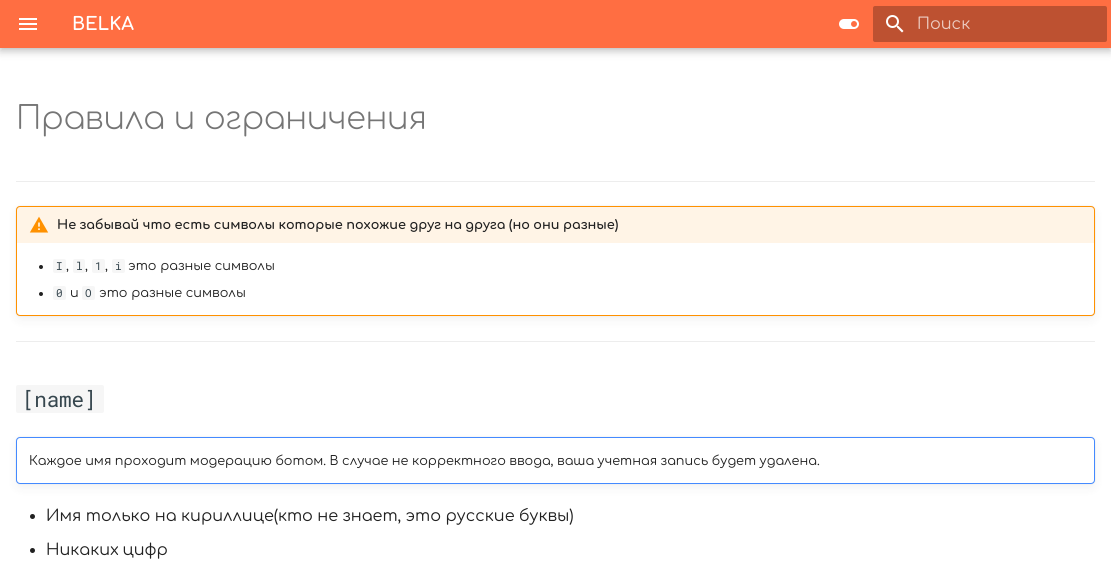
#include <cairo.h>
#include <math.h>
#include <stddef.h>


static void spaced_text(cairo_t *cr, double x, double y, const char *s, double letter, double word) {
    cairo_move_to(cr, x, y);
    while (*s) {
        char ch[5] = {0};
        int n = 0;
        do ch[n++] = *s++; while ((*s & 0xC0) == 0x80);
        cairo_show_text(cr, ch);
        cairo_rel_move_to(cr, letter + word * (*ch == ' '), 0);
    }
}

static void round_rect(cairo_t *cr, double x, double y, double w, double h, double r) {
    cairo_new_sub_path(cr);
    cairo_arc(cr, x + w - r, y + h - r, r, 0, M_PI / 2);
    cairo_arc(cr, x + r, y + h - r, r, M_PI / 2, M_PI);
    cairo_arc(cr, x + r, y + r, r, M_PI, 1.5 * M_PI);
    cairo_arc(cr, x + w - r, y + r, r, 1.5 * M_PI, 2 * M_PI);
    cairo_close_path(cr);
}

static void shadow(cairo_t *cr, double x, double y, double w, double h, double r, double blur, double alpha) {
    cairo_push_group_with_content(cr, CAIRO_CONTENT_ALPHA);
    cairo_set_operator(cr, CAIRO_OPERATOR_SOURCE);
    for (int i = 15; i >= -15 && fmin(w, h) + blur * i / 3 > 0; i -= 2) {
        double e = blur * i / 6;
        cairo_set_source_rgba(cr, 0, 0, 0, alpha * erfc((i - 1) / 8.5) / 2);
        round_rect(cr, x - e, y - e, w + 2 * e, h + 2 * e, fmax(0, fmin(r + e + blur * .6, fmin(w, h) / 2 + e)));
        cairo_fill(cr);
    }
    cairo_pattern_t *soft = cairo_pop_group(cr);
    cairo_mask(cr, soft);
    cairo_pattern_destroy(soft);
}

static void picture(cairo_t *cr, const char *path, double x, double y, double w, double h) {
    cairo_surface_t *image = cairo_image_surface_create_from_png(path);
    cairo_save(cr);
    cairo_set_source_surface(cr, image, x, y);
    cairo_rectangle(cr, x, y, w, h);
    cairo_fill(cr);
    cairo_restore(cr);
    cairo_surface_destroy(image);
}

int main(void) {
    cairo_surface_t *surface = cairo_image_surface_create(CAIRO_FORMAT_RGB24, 1111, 568);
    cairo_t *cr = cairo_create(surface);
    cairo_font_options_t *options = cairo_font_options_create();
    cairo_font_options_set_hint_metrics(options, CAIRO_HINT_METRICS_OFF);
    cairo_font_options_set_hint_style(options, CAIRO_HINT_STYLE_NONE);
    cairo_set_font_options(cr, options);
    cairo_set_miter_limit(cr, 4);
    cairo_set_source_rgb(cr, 1, 1, 1);
    cairo_paint(cr);
    cairo_set_source_rgb(cr, 0, 0, 0);
    shadow(cr, 0, 4, 1111, 48, 0, 4, 0.2);
    shadow(cr, 0, 0, 1111, 48, 0, 2, 0.1);
    cairo_set_source_rgb(cr, 1, 0.431, 0.259);
    cairo_rectangle(cr, 0, 0, 1111, 48);
    cairo_fill(cr);
    picture(cr, "img1.png", 19, 18, 18, 12);
    cairo_select_font_face(cr, "Comfortaa", CAIRO_FONT_SLANT_NORMAL, CAIRO_FONT_WEIGHT_BOLD);
    cairo_set_font_size(cr, 18);
    cairo_set_source_rgb(cr, 1, 1, 1);
    cairo_move_to(cr, 72, 30);
    cairo_show_text(cr, "BELKA");
    picture(cr, "img2.png", 839, 19, 20, 10);
    cairo_set_source_rgb(cr, 0.741, 0.318, 0.192);
    round_rect(cr, 873, 6, 234, 36, 2);
    cairo_fill(cr);
    picture(cr, "img3.png", 886, 15, 18, 18);
    cairo_select_font_face(cr, "Comfortaa", CAIRO_FONT_SLANT_NORMAL, CAIRO_FONT_WEIGHT_NORMAL);
    cairo_set_font_size(cr, 16);
    cairo_set_source_rgb(cr, 0.922, 0.796, 0.757);
    cairo_move_to(cr, 917, 29);
    cairo_show_text(cr, "Поиск");
    cairo_select_font_face(cr, "Comfortaa Light", CAIRO_FONT_SLANT_NORMAL, CAIRO_FONT_WEIGHT_NORMAL);
    cairo_set_font_size(cr, 32);
    cairo_set_source_rgb(cr, 0.459, 0.459, 0.459);
    spaced_text(cr, 16, 129, "Правила и ограничения", -0.3, 0);
    cairo_set_source_rgb(cr, 0.929, 0.929, 0.929);
    cairo_rectangle(cr, 16, 181, 1079, 1);
    cairo_fill(cr);
    cairo_set_source_rgb(cr, 0, 0, 0);
    shadow(cr, 16, 206, 1079, 110, 4, 0.5, 0.1);
    shadow(cr, 16, 210, 1079, 110, 4, 5, 0.05);
    cairo_set_source_rgb(cr, 1, 1, 1);
    round_rect(cr, 16.5, 206.5, 1078, 109, 3.5);
    cairo_fill_preserve(cr);
    cairo_set_source_rgb(cr, 1, 0.569, 0);
    cairo_set_line_width(cr, 1);
    cairo_stroke(cr);
    cairo_set_source_rgba(cr, 1, 0.569, 0, 0.1);
    cairo_new_path(cr);
    cairo_move_to(cr, 19, 207);
    cairo_line_to(cr, 1092, 207);
    cairo_curve_to(cr, 1093, 207, 1094, 208, 1094, 209);
    cairo_line_to(cr, 1094, 243);
    cairo_line_to(cr, 17, 243);
    cairo_line_to(cr, 17, 209);
    cairo_curve_to(cr, 17, 208, 18, 207, 19, 207);
    cairo_close_path(cr);
    cairo_fill(cr);
    picture(cr, "img4.png", 29, 216, 20, 17);
    cairo_select_font_face(cr, "Comfortaa", CAIRO_FONT_SLANT_NORMAL, CAIRO_FONT_WEIGHT_BOLD);
    cairo_set_font_size(cr, 12.8);
    cairo_set_source_rgb(cr, 0.129, 0.129, 0.129);
    spaced_text(cr, 57, 229, "Не забывай что есть символы которые похожие друг на друга (но они разные)", 0, -0.25);
    cairo_new_path(cr);
    cairo_arc(cr, 41, 267, 2, 0, 2 * M_PI);
    cairo_fill(cr);
    cairo_set_source_rgb(cr, 0.961, 0.961, 0.961);
    round_rect(cr, 53, 259, 13, 14, 2);
    cairo_fill(cr);
    cairo_select_font_face(cr, "Roboto Mono", CAIRO_FONT_SLANT_NORMAL, CAIRO_FONT_WEIGHT_NORMAL);
    cairo_set_font_size(cr, 11);
    cairo_set_source_rgb(cr, 0.212, 0.275, 0.306);
    cairo_move_to(cr, 56, 270);
    cairo_show_text(cr, "I");
    cairo_set_source_rgb(cr, 0.961, 0.961, 0.961);
    round_rect(cr, 73, 259, 12, 14, 2);
    cairo_fill(cr);
    cairo_set_source_rgb(cr, 0.212, 0.275, 0.306);
    cairo_move_to(cr, 76, 270);
    cairo_show_text(cr, "l");
    cairo_set_source_rgb(cr, 0.961, 0.961, 0.961);
    round_rect(cr, 92, 259, 13, 14, 2);
    cairo_fill(cr);
    cairo_set_source_rgb(cr, 0.212, 0.275, 0.306);
    cairo_move_to(cr, 95, 270);
    cairo_show_text(cr, "1");
    cairo_set_source_rgb(cr, 0.961, 0.961, 0.961);
    round_rect(cr, 112, 259, 13, 14, 2);
    cairo_fill(cr);
    cairo_set_source_rgb(cr, 0.212, 0.275, 0.306);
    cairo_move_to(cr, 115, 270);
    cairo_show_text(cr, "i");
    cairo_select_font_face(cr, "Comfortaa", CAIRO_FONT_SLANT_NORMAL, CAIRO_FONT_WEIGHT_NORMAL);
    cairo_set_font_size(cr, 12.8);
    cairo_set_source_rgb(cr, 0.129, 0.129, 0.129);
    cairo_move_to(cr, 128, 270);
    cairo_show_text(cr, "это разные символы");
    cairo_move_to(cr, 66, 270);
    cairo_show_text(cr, ",");
    cairo_move_to(cr, 85, 270);
    cairo_show_text(cr, ",");
    cairo_move_to(cr, 105, 270);
    cairo_show_text(cr, ",");
    cairo_new_path(cr);
    cairo_arc(cr, 41, 294, 2, 0, 2 * M_PI);
    cairo_fill(cr);
    cairo_set_source_rgb(cr, 0.961, 0.961, 0.961);
    round_rect(cr, 53, 286, 13, 14, 2);
    cairo_fill(cr);
    cairo_select_font_face(cr, "Roboto Mono", CAIRO_FONT_SLANT_NORMAL, CAIRO_FONT_WEIGHT_NORMAL);
    cairo_set_font_size(cr, 11);
    cairo_set_source_rgb(cr, 0.212, 0.275, 0.306);
    cairo_move_to(cr, 56, 297);
    cairo_show_text(cr, "0");
    cairo_select_font_face(cr, "Comfortaa", CAIRO_FONT_SLANT_NORMAL, CAIRO_FONT_WEIGHT_NORMAL);
    cairo_set_font_size(cr, 12.8);
    cairo_set_source_rgb(cr, 0.129, 0.129, 0.129);
    cairo_move_to(cr, 70, 297);
    cairo_show_text(cr, "и");
    cairo_set_source_rgb(cr, 0.961, 0.961, 0.961);
    round_rect(cr, 82, 286, 13, 14, 2);
    cairo_fill(cr);
    cairo_select_font_face(cr, "Roboto Mono", CAIRO_FONT_SLANT_NORMAL, CAIRO_FONT_WEIGHT_NORMAL);
    cairo_set_font_size(cr, 11);
    cairo_set_source_rgb(cr, 0.212, 0.275, 0.306);
    cairo_move_to(cr, 85, 297);
    cairo_show_text(cr, "O");
    cairo_select_font_face(cr, "Comfortaa", CAIRO_FONT_SLANT_NORMAL, CAIRO_FONT_WEIGHT_NORMAL);
    cairo_set_font_size(cr, 12.8);
    cairo_set_source_rgb(cr, 0.129, 0.129, 0.129);
    cairo_move_to(cr, 99, 297);
    cairo_show_text(cr, "это разные символы");
    cairo_set_source_rgb(cr, 0.929, 0.929, 0.929);
    cairo_rectangle(cr, 16, 341, 1079, 1);
    cairo_fill(cr);
    cairo_set_source_rgb(cr, 0.961, 0.961, 0.961);
    round_rect(cr, 16, 385, 88, 28, 2);
    cairo_fill(cr);
    cairo_select_font_face(cr, "Roboto Mono", CAIRO_FONT_SLANT_NORMAL, CAIRO_FONT_WEIGHT_NORMAL);
    cairo_set_font_size(cr, 21);
    cairo_set_source_rgb(cr, 0.212, 0.275, 0.306);
    spaced_text(cr, 22, 407, "[name]", -0.25, 0);
    cairo_set_source_rgb(cr, 0, 0, 0);
    shadow(cr, 16, 437, 1079, 47, 4, 0.5, 0.1);
    shadow(cr, 16, 441, 1079, 47, 4, 5, 0.05);
    cairo_set_source_rgb(cr, 1, 1, 1);
    round_rect(cr, 16.5, 437.5, 1078, 46, 3.5);
    cairo_fill_preserve(cr);
    cairo_set_source_rgb(cr, 0.267, 0.541, 1);
    cairo_stroke(cr);
    cairo_select_font_face(cr, "Comfortaa", CAIRO_FONT_SLANT_NORMAL, CAIRO_FONT_WEIGHT_NORMAL);
    cairo_set_font_size(cr, 12.8);
    cairo_set_source_rgb(cr, 0.129, 0.129, 0.129);
    spaced_text(cr, 29, 465, "Каждое имя проходит модерацию ботом. В случае не корректного ввода, ваша учетная запись будет удалена.", 0, -0.25);
    cairo_new_path(cr);
    cairo_arc(cr, 32.5, 516.5, 2.5, 0, 2 * M_PI);
    cairo_fill(cr);
    cairo_set_font_size(cr, 16);
    spaced_text(cr, 46, 521, "Имя только на кириллице(кто не знает, это русские буквы)", 0, -0.25);
    cairo_new_path(cr);
    cairo_arc(cr, 32.5, 550.5, 2.5, 0, 2 * M_PI);
    cairo_fill(cr);
    spaced_text(cr, 46, 555, "Никаких цифр", 0, -1);
    cairo_surface_write_to_png(surface, "page.png");
    cairo_font_options_destroy(options);
    cairo_destroy(cr);
    cairo_surface_destroy(surface);
    return 0;
}
